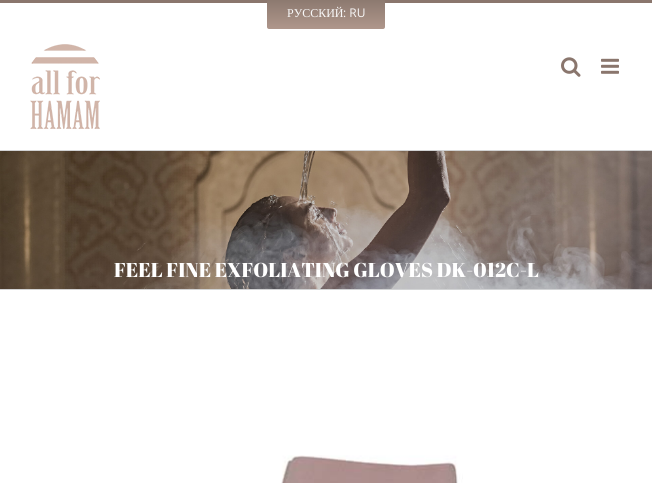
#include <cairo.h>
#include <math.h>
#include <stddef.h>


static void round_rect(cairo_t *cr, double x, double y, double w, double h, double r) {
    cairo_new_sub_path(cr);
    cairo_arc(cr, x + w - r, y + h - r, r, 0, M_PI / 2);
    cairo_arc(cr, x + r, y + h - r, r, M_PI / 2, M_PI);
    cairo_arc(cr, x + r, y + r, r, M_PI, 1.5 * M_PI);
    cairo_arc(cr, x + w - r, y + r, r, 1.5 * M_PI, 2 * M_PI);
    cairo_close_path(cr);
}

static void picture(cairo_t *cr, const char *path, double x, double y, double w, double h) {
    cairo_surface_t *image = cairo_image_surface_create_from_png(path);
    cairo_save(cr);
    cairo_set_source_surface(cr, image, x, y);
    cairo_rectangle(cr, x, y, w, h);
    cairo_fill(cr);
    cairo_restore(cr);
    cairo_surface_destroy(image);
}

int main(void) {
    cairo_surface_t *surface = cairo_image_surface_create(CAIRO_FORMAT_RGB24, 652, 483);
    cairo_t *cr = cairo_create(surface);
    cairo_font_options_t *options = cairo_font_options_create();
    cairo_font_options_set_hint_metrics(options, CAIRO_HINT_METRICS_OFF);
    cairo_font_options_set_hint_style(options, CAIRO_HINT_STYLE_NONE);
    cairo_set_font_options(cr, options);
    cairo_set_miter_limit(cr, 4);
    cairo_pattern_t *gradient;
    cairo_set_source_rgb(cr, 1, 1, 1);
    cairo_paint(cr);
    cairo_set_source_rgb(cr, 0.541, 0.463, 0.427);
    cairo_rectangle(cr, 0, 0, 652, 3);
    cairo_fill(cr);
    gradient = cairo_pattern_create_linear(326, 29, 326, -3);
    cairo_pattern_add_color_stop_rgba(gradient, 0, 0.686, 0.592, 0.545, 1);
    cairo_pattern_add_color_stop_rgba(gradient, 1, 0.537, 0.463, 0.427, 1);
    cairo_set_source(cr, gradient);
    cairo_pattern_destroy(gradient);
    round_rect(cr, 267, -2, 118, 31, 2);
    cairo_fill(cr);
    cairo_select_font_face(cr, "Liberation Serif", CAIRO_FONT_SLANT_NORMAL, CAIRO_FONT_WEIGHT_NORMAL);
    cairo_set_font_size(cr, 12);
    cairo_set_source_rgb(cr, 0.969, 0.969, 0.969);
    cairo_move_to(cr, 287, 17);
    cairo_show_text(cr, "РУССКИЙ");
    cairo_select_font_face(cr, "Open Sans", CAIRO_FONT_SLANT_NORMAL, CAIRO_FONT_WEIGHT_NORMAL);
    cairo_move_to(cr, 343, 17);
    cairo_show_text(cr, ": RU");
    picture(cr, "img1.png", 30, 44, 70, 85);
    picture(cr, "img2.png", 561, 57, 20, 20);
    picture(cr, "img3.png", 601, 58, 18, 16);
    picture(cr, "img4.png", 0, 151, 652, 138);
    cairo_set_source_rgb(cr, 0.824, 0.827, 0.831);
    cairo_rectangle(cr, 0, 150, 652, 1);
    cairo_fill(cr);
    cairo_rectangle(cr, 0, 289, 652, 1);
    cairo_fill(cr);
    cairo_select_font_face(cr, "Abril Fatface", CAIRO_FONT_SLANT_NORMAL, CAIRO_FONT_WEIGHT_NORMAL);
    cairo_set_font_size(cr, 20);
    cairo_set_source_rgb(cr, 1, 1, 1);
    cairo_move_to(cr, 114, 277);
    cairo_show_text(cr, "FEEL FINE EXFOLIATING GLOVES DK-012C-L");
    picture(cr, "img5.png", 281, 455, 182, 28);
    cairo_surface_write_to_png(surface, "page.png");
    cairo_font_options_destroy(options);
    cairo_destroy(cr);
    cairo_surface_destroy(surface);
    return 0;
}
